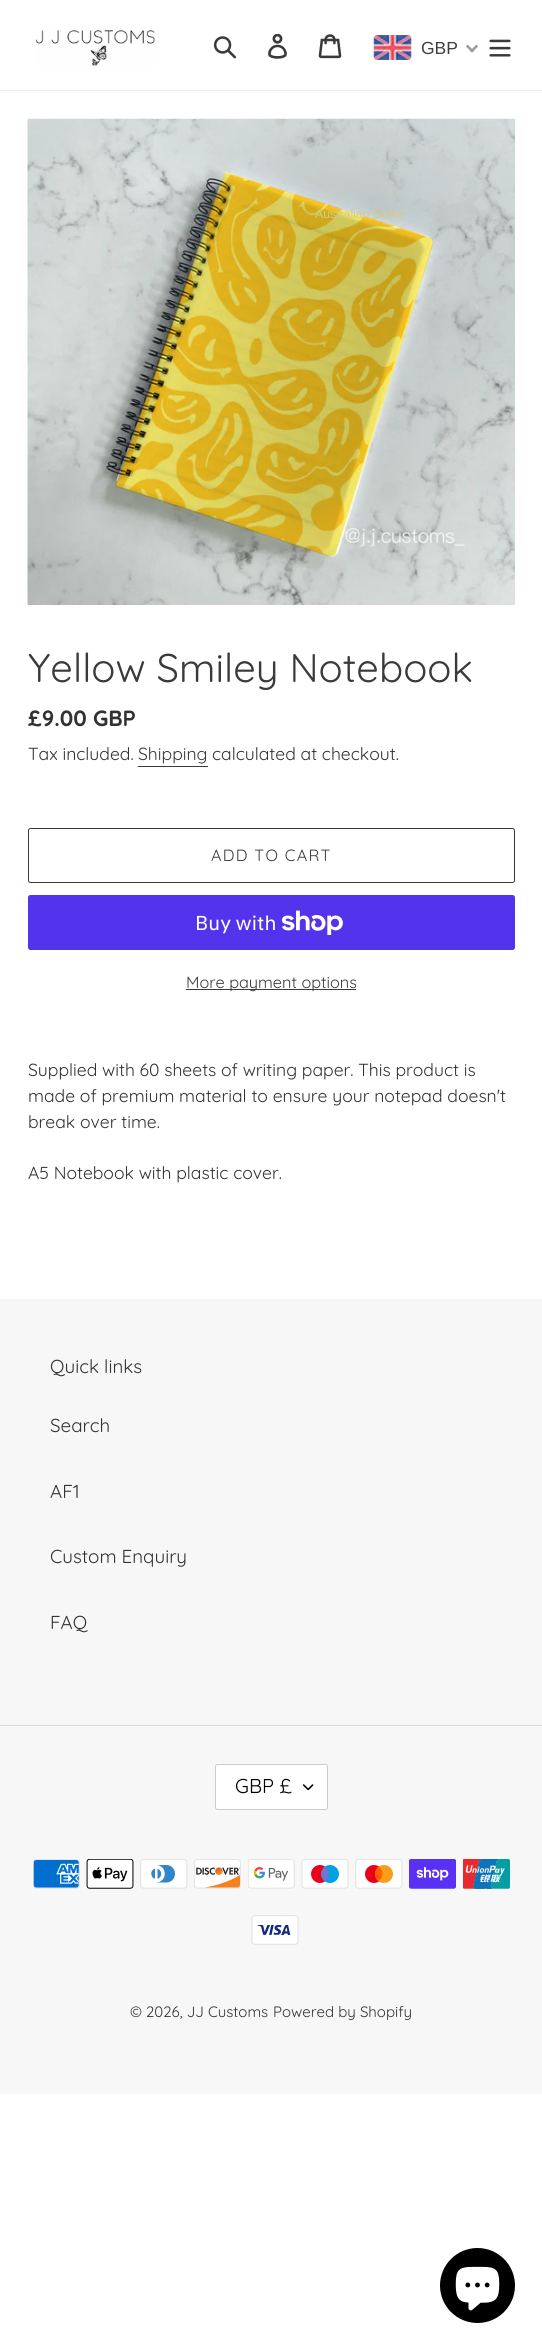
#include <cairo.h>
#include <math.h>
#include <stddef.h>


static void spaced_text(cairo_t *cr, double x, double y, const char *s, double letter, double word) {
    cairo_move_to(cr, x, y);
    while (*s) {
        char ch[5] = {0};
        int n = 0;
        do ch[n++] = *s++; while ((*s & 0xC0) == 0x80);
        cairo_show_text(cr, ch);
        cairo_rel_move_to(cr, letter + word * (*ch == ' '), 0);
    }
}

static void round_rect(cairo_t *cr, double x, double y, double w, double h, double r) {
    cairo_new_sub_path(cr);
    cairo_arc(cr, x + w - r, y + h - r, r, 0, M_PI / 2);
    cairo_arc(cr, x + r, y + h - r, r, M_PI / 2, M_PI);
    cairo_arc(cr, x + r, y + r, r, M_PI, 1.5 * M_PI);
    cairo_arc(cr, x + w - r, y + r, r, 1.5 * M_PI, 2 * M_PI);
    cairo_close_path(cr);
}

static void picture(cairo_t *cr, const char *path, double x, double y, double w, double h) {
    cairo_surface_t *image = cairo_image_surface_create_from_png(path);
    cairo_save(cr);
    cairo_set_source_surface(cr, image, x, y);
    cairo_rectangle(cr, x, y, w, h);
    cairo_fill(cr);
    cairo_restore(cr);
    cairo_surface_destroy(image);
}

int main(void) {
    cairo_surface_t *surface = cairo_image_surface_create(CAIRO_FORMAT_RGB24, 542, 2348);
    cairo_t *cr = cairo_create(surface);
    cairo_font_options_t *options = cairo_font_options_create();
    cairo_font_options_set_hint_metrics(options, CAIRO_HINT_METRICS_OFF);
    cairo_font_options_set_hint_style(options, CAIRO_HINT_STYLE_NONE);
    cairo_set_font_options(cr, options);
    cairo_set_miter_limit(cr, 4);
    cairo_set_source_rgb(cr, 1, 1, 1);
    cairo_paint(cr);
    cairo_set_source_rgb(cr, 0.922, 0.922, 0.922);
    cairo_rectangle(cr, 0, 90, 542, 1);
    cairo_fill(cr);
    picture(cr, "img1.png", 35, 28, 120, 38);
    picture(cr, "img2.png", 213, 36, 23, 23);
    picture(cr, "img3.png", 268, 34, 19, 25);
    picture(cr, "img4.png", 318, 34, 24, 25);
    picture(cr, "img5.png", 489, 39, 22, 18);
    picture(cr, "img6.png", 373, 35, 39, 25);
    cairo_select_font_face(cr, "Liberation Sans", CAIRO_FONT_SLANT_NORMAL, CAIRO_FONT_WEIGHT_NORMAL);
    cairo_set_font_size(cr, 17.5);
    cairo_set_source_rgb(cr, 0.251, 0.247, 0.247);
    cairo_move_to(cr, 421, 54);
    cairo_show_text(cr, "GBP");
    cairo_set_source_rgb(cr, 0.6, 0.6, 0.6);
    cairo_new_path(cr);
    cairo_move_to(cr, 476.5, 44.5);
    cairo_line_to(cr, 478, 46.5);
    cairo_line_to(cr, 472, 52.5);
    cairo_line_to(cr, 470, 51);
    cairo_close_path(cr);
    cairo_fill(cr);
    cairo_new_path(cr);
    cairo_move_to(cr, 467.5, 44.5);
    cairo_line_to(cr, 474, 51);
    cairo_line_to(cr, 472, 52.5);
    cairo_line_to(cr, 466, 46.5);
    cairo_close_path(cr);
    cairo_fill(cr);
    picture(cr, "img7.png", 27, 118, 488, 487);
    cairo_set_font_size(cr, 12.25);
    cairo_set_source_rgb(cr, 0.82, 0.792, 0.541);
    cairo_move_to(cr, 315, 218);
    cairo_show_text(cr, "Australian Dollar");
    cairo_select_font_face(cr, "Quicksand", CAIRO_FONT_SLANT_NORMAL, CAIRO_FONT_WEIGHT_NORMAL);
    cairo_set_font_size(cr, 40);
    cairo_set_source_rgb(cr, 0.227, 0.227, 0.227);
    cairo_move_to(cr, 28, 682);
    cairo_show_text(cr, "Yellow Smiley Notebook");
    cairo_select_font_face(cr, "Quicksand", CAIRO_FONT_SLANT_NORMAL, CAIRO_FONT_WEIGHT_BOLD);
    cairo_set_font_size(cr, 22);
    cairo_set_source_rgb(cr, 0.2, 0.196, 0.196);
    cairo_move_to(cr, 28, 726);
    cairo_show_text(cr, "£9.00 GBP");
    cairo_select_font_face(cr, "Quicksand", CAIRO_FONT_SLANT_NORMAL, CAIRO_FONT_WEIGHT_NORMAL);
    cairo_set_font_size(cr, 17.5);
    cairo_move_to(cr, 28, 760);
    cairo_show_text(cr, "Tax included.");
    cairo_set_source_rgb(cr, 0.227, 0.227, 0.227);
    cairo_move_to(cr, 138, 760);
    cairo_show_text(cr, "Shipping");
    cairo_rectangle(cr, 138, 766, 70, 1);
    cairo_fill(cr);
    cairo_set_source_rgb(cr, 0.2, 0.196, 0.196);
    cairo_move_to(cr, 212, 760);
    cairo_show_text(cr, "calculated at checkout.");
    round_rect(cr, 28.5, 828.5, 486, 54, 2);
    cairo_set_source_rgb(cr, 0.227, 0.227, 0.227);
    cairo_set_line_width(cr, 1);
    cairo_stroke(cr);
    cairo_set_font_size(cr, 16.25);
    spaced_text(cr, 211, 861, "ADD TO CART", 1.25, 0);
    cairo_set_source_rgb(cr, 0.329, 0.2, 0.922);
    round_rect(cr, 28, 895, 487, 55, 2.5);
    cairo_fill(cr);
    cairo_select_font_face(cr, "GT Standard", CAIRO_FONT_SLANT_NORMAL, CAIRO_FONT_WEIGHT_NORMAL);
    cairo_set_font_size(cr, 20);
    cairo_set_source_rgb(cr, 1, 1, 1);
    cairo_move_to(cr, 195, 930);
    cairo_show_text(cr, "Buy with");
    picture(cr, "img8.png", 281, 910, 62, 25);
    cairo_set_source_rgb(cr, 0.227, 0.227, 0.227);
    cairo_rectangle(cr, 186, 989, 170, 1);
    cairo_fill(cr);
    cairo_select_font_face(cr, "Quicksand", CAIRO_FONT_SLANT_NORMAL, CAIRO_FONT_WEIGHT_NORMAL);
    cairo_set_font_size(cr, 16.25);
    cairo_move_to(cr, 186, 988);
    cairo_show_text(cr, "More payment options");
    cairo_set_font_size(cr, 17.5);
    cairo_set_source_rgb(cr, 0.2, 0.196, 0.196);
    cairo_move_to(cr, 28, 1076);
    cairo_show_text(cr, "Supplied with 60 sheets of writing paper. This product is");
    cairo_move_to(cr, 28, 1102);
    cairo_show_text(cr, "made of premium material to ensure your notepad doesn't");
    cairo_move_to(cr, 28, 1128);
    cairo_show_text(cr, "break over time.");
    cairo_move_to(cr, 28, 1179);
    cairo_show_text(cr, "A5 Notebook with plastic cover.");
    cairo_set_source_rgb(cr, 0.965, 0.965, 0.965);
    cairo_rectangle(cr, 0, 1299, 542, 795);
    cairo_fill(cr);
    cairo_set_font_size(cr, 18.75);
    cairo_set_source_rgb(cr, 0.2, 0.196, 0.196);
    cairo_move_to(cr, 50, 1373);
    cairo_show_text(cr, "Quick links");
    cairo_move_to(cr, 50, 1432);
    cairo_show_text(cr, "Search");
    cairo_move_to(cr, 50, 1498);
    cairo_show_text(cr, "AF1");
    cairo_move_to(cr, 50, 1563);
    cairo_show_text(cr, "Custom Enquiry");
    cairo_move_to(cr, 50, 1629);
    cairo_show_text(cr, "FAQ");
    cairo_set_source_rgb(cr, 0.867, 0.867, 0.867);
    cairo_rectangle(cr, 0, 1725, 542, 1);
    cairo_fill(cr);
    cairo_set_source_rgb(cr, 1, 1, 1);
    round_rect(cr, 215, 1764, 113, 46, 2.5);
    cairo_fill(cr);
    picture(cr, "img9.png", 303, 1784, 11, 7);
    round_rect(cr, 215.5, 1764.5, 112, 45, 2);
    cairo_set_source_rgb(cr, 0.8, 0.8, 0.8);
    cairo_stroke(cr);
    cairo_set_font_size(cr, 20);
    cairo_set_source_rgb(cr, 0, 0, 0);
    cairo_move_to(cr, 235, 1793);
    cairo_show_text(cr, "GBP £");
    picture(cr, "img10.png", 33, 1859, 47, 30);
    picture(cr, "img11.png", 86, 1859, 48, 30);
    picture(cr, "img12.png", 140, 1859, 48, 30);
    picture(cr, "img13.png", 194, 1859, 47, 30);
    picture(cr, "img14.png", 248, 1859, 47, 30);
    picture(cr, "img15.png", 301, 1859, 48, 30);
    picture(cr, "img16.png", 355, 1859, 48, 30);
    picture(cr, "img17.png", 409, 1859, 47, 30);
    picture(cr, "img18.png", 463, 1859, 47, 30);
    picture(cr, "img19.png", 251, 1915, 48, 30);
    cairo_set_font_size(cr, 15);
    cairo_set_source_rgb(cr, 0.2, 0.196, 0.196);
    cairo_move_to(cr, 130, 2017);
    cairo_show_text(cr, "© 2026, JJ Customs");
    cairo_move_to(cr, 273, 2017);
    cairo_show_text(cr, "Powered by Shopify");
    cairo_set_source_rgb(cr, 0, 0, 0);
    cairo_new_path(cr);
    cairo_arc(cr, 477.5, 2285.5, 37.5, 0, 2 * M_PI);
    cairo_fill(cr);
    picture(cr, "img20.png", 455, 2266, 45, 45);
    cairo_surface_write_to_png(surface, "page.png");
    cairo_font_options_destroy(options);
    cairo_destroy(cr);
    cairo_surface_destroy(surface);
    return 0;
}
